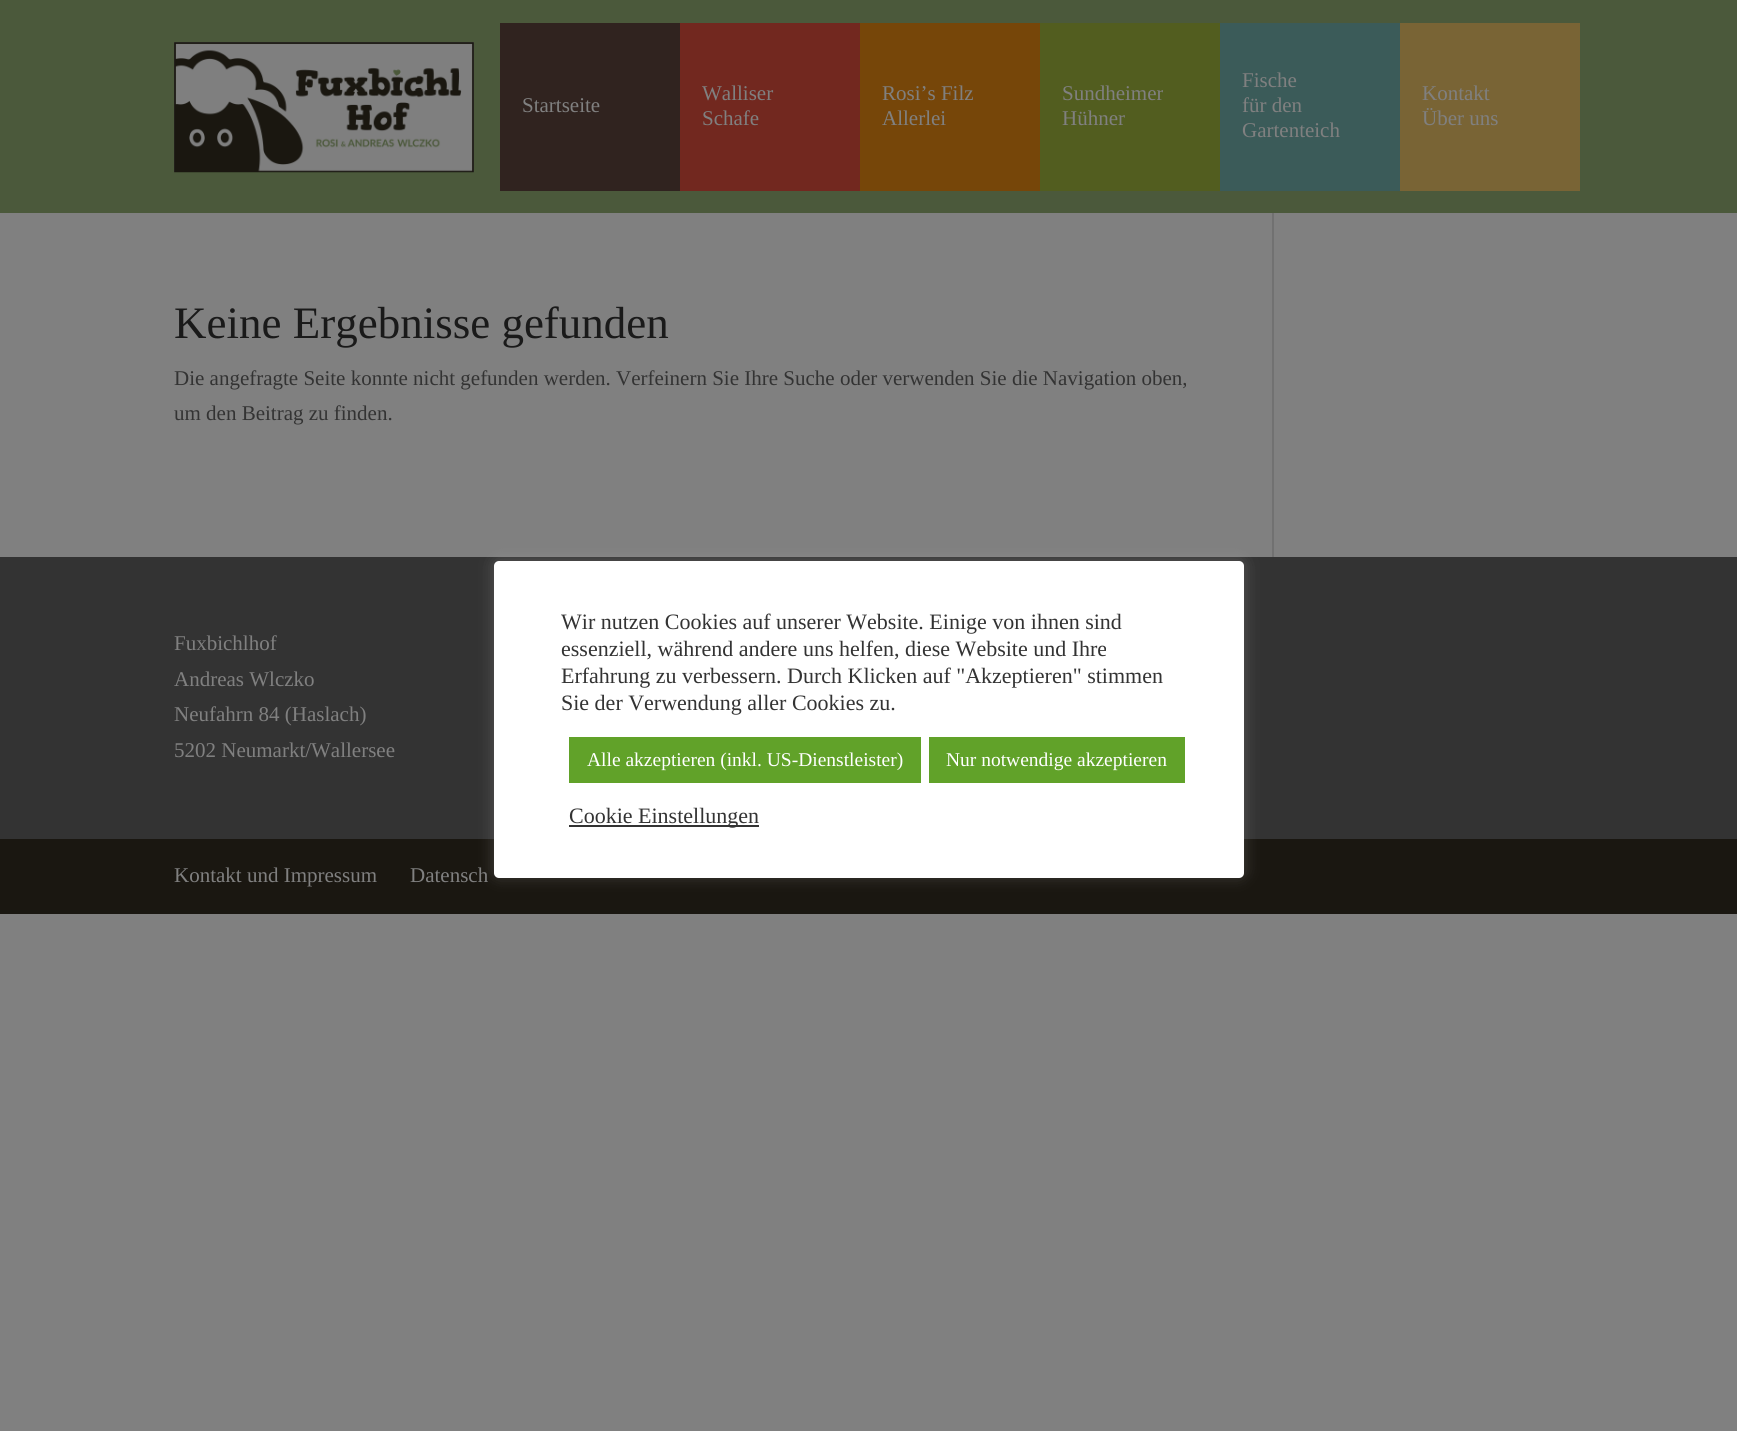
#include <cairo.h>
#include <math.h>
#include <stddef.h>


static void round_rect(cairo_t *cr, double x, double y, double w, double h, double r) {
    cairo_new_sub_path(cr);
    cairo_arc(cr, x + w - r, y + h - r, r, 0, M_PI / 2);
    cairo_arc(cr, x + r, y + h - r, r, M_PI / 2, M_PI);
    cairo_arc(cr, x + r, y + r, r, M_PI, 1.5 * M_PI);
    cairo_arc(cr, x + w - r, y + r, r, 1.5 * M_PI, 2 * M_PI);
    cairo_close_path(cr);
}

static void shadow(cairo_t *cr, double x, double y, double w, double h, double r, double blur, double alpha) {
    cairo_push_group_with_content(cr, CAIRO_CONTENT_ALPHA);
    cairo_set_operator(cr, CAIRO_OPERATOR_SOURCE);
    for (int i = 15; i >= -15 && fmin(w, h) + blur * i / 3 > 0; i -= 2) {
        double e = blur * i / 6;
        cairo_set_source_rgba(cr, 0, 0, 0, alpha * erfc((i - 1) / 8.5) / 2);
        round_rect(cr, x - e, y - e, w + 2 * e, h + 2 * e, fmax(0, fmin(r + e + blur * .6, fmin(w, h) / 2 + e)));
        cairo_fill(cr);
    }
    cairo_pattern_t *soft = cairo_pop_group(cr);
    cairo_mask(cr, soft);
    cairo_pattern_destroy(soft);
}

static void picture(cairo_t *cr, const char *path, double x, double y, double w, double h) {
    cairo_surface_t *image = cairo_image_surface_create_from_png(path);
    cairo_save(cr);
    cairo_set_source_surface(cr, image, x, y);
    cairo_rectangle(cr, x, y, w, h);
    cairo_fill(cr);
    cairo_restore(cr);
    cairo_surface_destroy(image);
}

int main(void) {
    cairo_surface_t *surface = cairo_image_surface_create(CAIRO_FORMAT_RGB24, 1737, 1431);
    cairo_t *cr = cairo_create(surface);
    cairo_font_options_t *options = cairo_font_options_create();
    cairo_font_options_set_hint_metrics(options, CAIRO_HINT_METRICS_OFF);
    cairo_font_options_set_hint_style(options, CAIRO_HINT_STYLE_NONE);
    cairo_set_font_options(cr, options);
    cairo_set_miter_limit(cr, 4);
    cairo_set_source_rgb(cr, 0.502, 0.502, 0.502);
    cairo_paint(cr);
    cairo_set_source_rgb(cr, 0.294, 0.349, 0.231);
    cairo_rectangle(cr, 0, 0, 1737, 213);
    cairo_fill(cr);
    picture(cr, "img1.png", 174, 42, 300, 131);
    cairo_set_source_rgb(cr, 0.188, 0.137, 0.122);
    cairo_rectangle(cr, 500, 23, 180, 168);
    cairo_fill(cr);
    cairo_select_font_face(cr, "Liberation Serif", CAIRO_FONT_SLANT_NORMAL, CAIRO_FONT_WEIGHT_NORMAL);
    cairo_set_font_size(cr, 21);
    cairo_set_source_rgb(cr, 0.502, 0.502, 0.502);
    cairo_move_to(cr, 522, 112);
    cairo_show_text(cr, "Startseite");
    cairo_set_source_rgb(cr, 0.447, 0.157, 0.122);
    cairo_rectangle(cr, 680, 23, 180, 168);
    cairo_fill(cr);
    cairo_set_source_rgb(cr, 0.502, 0.502, 0.502);
    cairo_move_to(cr, 702, 100);
    cairo_show_text(cr, "Walliser");
    cairo_move_to(cr, 702, 125);
    cairo_show_text(cr, "Schafe");
    cairo_set_source_rgb(cr, 0.463, 0.275, 0.039);
    cairo_rectangle(cr, 860, 23, 180, 168);
    cairo_fill(cr);
    cairo_set_source_rgb(cr, 0.502, 0.502, 0.502);
    cairo_move_to(cr, 882, 100);
    cairo_show_text(cr, "Rosi’s Filz");
    cairo_move_to(cr, 882, 125);
    cairo_show_text(cr, "Allerlei");
    cairo_set_source_rgb(cr, 0.322, 0.365, 0.122);
    cairo_rectangle(cr, 1040, 23, 180, 168);
    cairo_fill(cr);
    cairo_set_source_rgb(cr, 0.502, 0.502, 0.502);
    cairo_move_to(cr, 1062, 100);
    cairo_show_text(cr, "Sundheimer");
    cairo_move_to(cr, 1062, 125);
    cairo_show_text(cr, "Hühner");
    cairo_set_source_rgb(cr, 0.231, 0.357, 0.349);
    cairo_rectangle(cr, 1220, 23, 180, 168);
    cairo_fill(cr);
    cairo_set_source_rgb(cr, 0.502, 0.502, 0.502);
    cairo_move_to(cr, 1242, 87);
    cairo_show_text(cr, "Fische");
    cairo_move_to(cr, 1242, 112);
    cairo_show_text(cr, "für den");
    cairo_move_to(cr, 1242, 137);
    cairo_show_text(cr, "Gartenteich");
    cairo_set_source_rgb(cr, 0.475, 0.392, 0.208);
    cairo_rectangle(cr, 1400, 23, 180, 168);
    cairo_fill(cr);
    cairo_set_source_rgb(cr, 0.502, 0.502, 0.502);
    cairo_move_to(cr, 1422, 100);
    cairo_show_text(cr, "Kontakt");
    cairo_move_to(cr, 1422, 125);
    cairo_show_text(cr, "Über uns");
    cairo_set_font_size(cr, 45);
    cairo_set_source_rgb(cr, 0.102, 0.102, 0.102);
    cairo_move_to(cr, 174, 338);
    cairo_show_text(cr, "Keine Ergebnisse gefunden");
    cairo_set_font_size(cr, 21);
    cairo_set_source_rgb(cr, 0.2, 0.2, 0.2);
    cairo_move_to(cr, 174, 385);
    cairo_show_text(cr, "Die angefragte Seite konnte nicht gefunden werden. Verfeinern Sie Ihre Suche oder verwenden Sie die Navigation oben,");
    cairo_move_to(cr, 174, 420);
    cairo_show_text(cr, "um den Beitrag zu finden.");
    cairo_set_source_rgb(cr, 0.443, 0.443, 0.443);
    cairo_rectangle(cr, 1272, 213, 2, 344);
    cairo_fill(cr);
    cairo_set_source_rgb(cr, 0.2, 0.2, 0.2);
    cairo_rectangle(cr, 0, 557, 1737, 282);
    cairo_fill(cr);
    cairo_set_source_rgb(cr, 0.502, 0.502, 0.502);
    cairo_move_to(cr, 174, 650);
    cairo_show_text(cr, "Fuxbichlhof");
    cairo_move_to(cr, 174, 686);
    cairo_show_text(cr, "Andreas Wlczko");
    cairo_move_to(cr, 174, 721);
    cairo_show_text(cr, "Neufahrn 84 (Haslach)");
    cairo_move_to(cr, 174, 757);
    cairo_show_text(cr, "5202 Neumarkt/Wallersee");
    cairo_set_source_rgb(cr, 0.102, 0.09, 0.067);
    cairo_rectangle(cr, 0, 839, 1737, 75);
    cairo_fill(cr);
    cairo_set_source_rgb(cr, 0.502, 0.502, 0.502);
    cairo_move_to(cr, 174, 882);
    cairo_show_text(cr, "Kontakt und Impressum");
    cairo_move_to(cr, 410, 882);
    cairo_show_text(cr, "Datensch");
    cairo_set_source_rgb(cr, 0.675, 0.671, 0.671);
    shadow(cr, 494, 560, 750, 316, 5, 7.5, 0.3);
    cairo_set_source_rgb(cr, 1, 1, 1);
    round_rect(cr, 494, 561, 750, 317, 5);
    cairo_fill(cr);
    cairo_set_font_size(cr, 22);
    cairo_set_source_rgb(cr, 0.2, 0.2, 0.2);
    cairo_move_to(cr, 561, 629);
    cairo_show_text(cr, "Wir nutzen Cookies auf unserer Website. Einige von ihnen sind");
    cairo_move_to(cr, 561, 656);
    cairo_show_text(cr, "essenziell, während andere uns helfen, diese Website und Ihre");
    cairo_move_to(cr, 561, 683);
    cairo_show_text(cr, "Erfahrung zu verbessern. Durch Klicken auf \"Akzeptieren\" stimmen");
    cairo_move_to(cr, 561, 710);
    cairo_show_text(cr, "Sie der Verwendung aller Cookies zu.");
    cairo_set_source_rgb(cr, 0.38, 0.635, 0.161);
    cairo_rectangle(cr, 569, 737, 352, 46);
    cairo_fill(cr);
    cairo_set_font_size(cr, 19.5);
    cairo_set_source_rgb(cr, 1, 1, 1);
    cairo_move_to(cr, 587, 766);
    cairo_show_text(cr, "Alle akzeptieren (inkl. US-Dienstleister)");
    cairo_set_source_rgb(cr, 0.38, 0.635, 0.161);
    cairo_rectangle(cr, 929, 737, 256, 46);
    cairo_fill(cr);
    cairo_set_source_rgb(cr, 1, 1, 1);
    cairo_move_to(cr, 946, 766);
    cairo_show_text(cr, "Nur notwendige akzeptieren");
    cairo_set_source_rgb(cr, 0.2, 0.2, 0.2);
    cairo_rectangle(cr, 569, 825, 190, 2);
    cairo_fill(cr);
    cairo_set_font_size(cr, 22);
    cairo_move_to(cr, 569, 823);
    cairo_show_text(cr, "Cookie Einstellungen");
    cairo_surface_write_to_png(surface, "page.png");
    cairo_font_options_destroy(options);
    cairo_destroy(cr);
    cairo_surface_destroy(surface);
    return 0;
}
